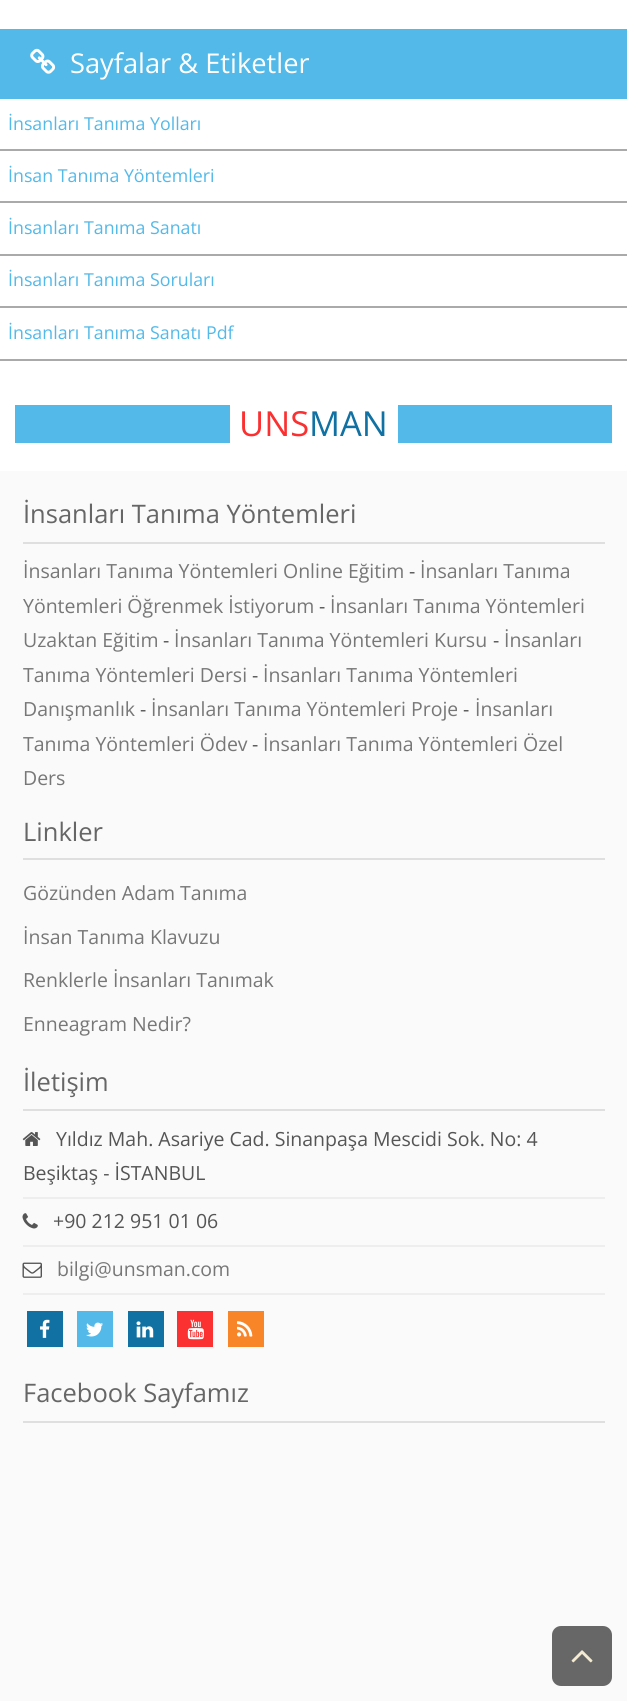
#include <cairo.h>
#include <math.h>
#include <stddef.h>


static void round_rect(cairo_t *cr, double x, double y, double w, double h, double r) {
    cairo_new_sub_path(cr);
    cairo_arc(cr, x + w - r, y + h - r, r, 0, M_PI / 2);
    cairo_arc(cr, x + r, y + h - r, r, M_PI / 2, M_PI);
    cairo_arc(cr, x + r, y + r, r, M_PI, 1.5 * M_PI);
    cairo_arc(cr, x + w - r, y + r, r, 1.5 * M_PI, 2 * M_PI);
    cairo_close_path(cr);
}

static void picture(cairo_t *cr, const char *path, double x, double y, double w, double h) {
    cairo_surface_t *image = cairo_image_surface_create_from_png(path);
    cairo_save(cr);
    cairo_set_source_surface(cr, image, x, y);
    cairo_rectangle(cr, x, y, w, h);
    cairo_fill(cr);
    cairo_restore(cr);
    cairo_surface_destroy(image);
}

int main(void) {
    cairo_surface_t *surface = cairo_image_surface_create(CAIRO_FORMAT_RGB24, 627, 1701);
    cairo_t *cr = cairo_create(surface);
    cairo_font_options_t *options = cairo_font_options_create();
    cairo_font_options_set_hint_metrics(options, CAIRO_HINT_METRICS_OFF);
    cairo_font_options_set_hint_style(options, CAIRO_HINT_STYLE_NONE);
    cairo_set_font_options(cr, options);
    cairo_set_miter_limit(cr, 4);
    cairo_set_source_rgb(cr, 1, 1, 1);
    cairo_paint(cr);
    cairo_set_source_rgb(cr, 0.322, 0.725, 0.914);
    cairo_rectangle(cr, 0, 29, 627, 70);
    cairo_fill(cr);
    picture(cr, "img1.png", 30, 48, 26, 26);
    cairo_select_font_face(cr, "Open Sans", CAIRO_FONT_SLANT_NORMAL, CAIRO_FONT_WEIGHT_NORMAL);
    cairo_set_font_size(cr, 27.25);
    cairo_set_source_rgb(cr, 1, 1, 1);
    cairo_move_to(cr, 70, 73);
    cairo_show_text(cr, "Sayfalar & Etiketler");
    cairo_set_source_rgb(cr, 0.667, 0.667, 0.667);
    cairo_rectangle(cr, 0, 149, 627, 2);
    cairo_fill(cr);
    cairo_set_font_size(cr, 17.8);
    cairo_set_source_rgb(cr, 0.322, 0.725, 0.914);
    cairo_move_to(cr, 8, 130);
    cairo_show_text(cr, "İnsanları Tanıma Yolları");
    cairo_set_source_rgb(cr, 0.667, 0.667, 0.667);
    cairo_rectangle(cr, 0, 201, 627, 2);
    cairo_fill(cr);
    cairo_set_source_rgb(cr, 0.322, 0.725, 0.914);
    cairo_move_to(cr, 8, 182);
    cairo_show_text(cr, "İnsan Tanıma Yöntemleri");
    cairo_set_source_rgb(cr, 0.667, 0.667, 0.667);
    cairo_rectangle(cr, 0, 254, 627, 2);
    cairo_fill(cr);
    cairo_set_source_rgb(cr, 0.322, 0.725, 0.914);
    cairo_move_to(cr, 8, 234);
    cairo_show_text(cr, "İnsanları Tanıma Sanatı");
    cairo_set_source_rgb(cr, 0.667, 0.667, 0.667);
    cairo_rectangle(cr, 0, 306, 627, 2);
    cairo_fill(cr);
    cairo_set_source_rgb(cr, 0.322, 0.725, 0.914);
    cairo_move_to(cr, 8, 286);
    cairo_show_text(cr, "İnsanları Tanıma Soruları");
    cairo_set_source_rgb(cr, 0.667, 0.667, 0.667);
    cairo_rectangle(cr, 0, 359, 627, 2);
    cairo_fill(cr);
    cairo_set_source_rgb(cr, 0.322, 0.725, 0.914);
    cairo_move_to(cr, 8, 339);
    cairo_show_text(cr, "İnsanları Tanıma Sanatı Pdf");
    cairo_rectangle(cr, 15, 405, 597, 38);
    cairo_fill(cr);
    cairo_set_source_rgb(cr, 1, 1, 1);
    cairo_rectangle(cr, 230, 405, 168, 38);
    cairo_fill(cr);
    cairo_set_font_size(cr, 34.5);
    cairo_set_source_rgb(cr, 0.98, 0.188, 0.192);
    cairo_move_to(cr, 239, 436);
    cairo_show_text(cr, "UNS");
    cairo_set_source_rgb(cr, 0.067, 0.443, 0.639);
    cairo_move_to(cr, 309, 436);
    cairo_show_text(cr, "MAN");
    cairo_set_source_rgb(cr, 0.98, 0.98, 0.98);
    cairo_rectangle(cr, 0, 471, 627, 1230);
    cairo_fill(cr);
    cairo_set_source_rgb(cr, 0.875, 0.875, 0.875);
    cairo_rectangle(cr, 23, 542, 582, 2);
    cairo_fill(cr);
    cairo_set_font_size(cr, 25.5);
    cairo_set_source_rgb(cr, 0.4, 0.4, 0.4);
    cairo_move_to(cr, 23, 523);
    cairo_show_text(cr, "İnsanları Tanıma Yöntemleri");
    cairo_set_font_size(cr, 19.5);
    cairo_set_source_rgb(cr, 0.467, 0.467, 0.467);
    cairo_move_to(cr, 23, 578);
    cairo_show_text(cr, "İnsanları Tanıma Yöntemleri Online Eğitim");
    cairo_set_source_rgb(cr, 0.333, 0.333, 0.333);
    cairo_move_to(cr, 409, 578);
    cairo_show_text(cr, "-");
    cairo_set_source_rgb(cr, 0.467, 0.467, 0.467);
    cairo_move_to(cr, 420, 578);
    cairo_show_text(cr, "İnsanları Tanıma");
    cairo_move_to(cr, 23, 613);
    cairo_show_text(cr, "Yöntemleri Öğrenmek İstiyorum");
    cairo_set_source_rgb(cr, 0.333, 0.333, 0.333);
    cairo_move_to(cr, 319, 613);
    cairo_show_text(cr, "-");
    cairo_set_source_rgb(cr, 0.467, 0.467, 0.467);
    cairo_move_to(cr, 330, 613);
    cairo_show_text(cr, "İnsanları Tanıma Yöntemleri");
    cairo_move_to(cr, 23, 647);
    cairo_show_text(cr, "Uzaktan Eğitim");
    cairo_set_source_rgb(cr, 0.333, 0.333, 0.333);
    cairo_move_to(cr, 163, 647);
    cairo_show_text(cr, "-");
    cairo_set_source_rgb(cr, 0.467, 0.467, 0.467);
    cairo_move_to(cr, 174, 647);
    cairo_show_text(cr, "İnsanları Tanıma Yöntemleri Kursu");
    cairo_set_source_rgb(cr, 0.333, 0.333, 0.333);
    cairo_move_to(cr, 493, 647);
    cairo_show_text(cr, "-");
    cairo_set_source_rgb(cr, 0.467, 0.467, 0.467);
    cairo_move_to(cr, 504, 647);
    cairo_show_text(cr, "İnsanları");
    cairo_move_to(cr, 23, 682);
    cairo_show_text(cr, "Tanıma Yöntemleri Dersi");
    cairo_set_source_rgb(cr, 0.333, 0.333, 0.333);
    cairo_move_to(cr, 252, 682);
    cairo_show_text(cr, "-");
    cairo_set_source_rgb(cr, 0.467, 0.467, 0.467);
    cairo_move_to(cr, 263, 682);
    cairo_show_text(cr, "İnsanları Tanıma Yöntemleri");
    cairo_move_to(cr, 23, 716);
    cairo_show_text(cr, "Danışmanlık");
    cairo_set_source_rgb(cr, 0.333, 0.333, 0.333);
    cairo_move_to(cr, 140, 716);
    cairo_show_text(cr, "-");
    cairo_set_source_rgb(cr, 0.467, 0.467, 0.467);
    cairo_move_to(cr, 151, 716);
    cairo_show_text(cr, "İnsanları Tanıma Yöntemleri Proje");
    cairo_set_source_rgb(cr, 0.333, 0.333, 0.333);
    cairo_move_to(cr, 463, 716);
    cairo_show_text(cr, "-");
    cairo_set_source_rgb(cr, 0.467, 0.467, 0.467);
    cairo_move_to(cr, 475, 716);
    cairo_show_text(cr, "İnsanları");
    cairo_move_to(cr, 23, 751);
    cairo_show_text(cr, "Tanıma Yöntemleri Ödev");
    cairo_set_source_rgb(cr, 0.333, 0.333, 0.333);
    cairo_move_to(cr, 252, 751);
    cairo_show_text(cr, "-");
    cairo_set_source_rgb(cr, 0.467, 0.467, 0.467);
    cairo_move_to(cr, 263, 751);
    cairo_show_text(cr, "İnsanları Tanıma Yöntemleri Özel");
    cairo_move_to(cr, 23, 785);
    cairo_show_text(cr, "Ders");
    cairo_set_source_rgb(cr, 0.875, 0.875, 0.875);
    cairo_rectangle(cr, 23, 858, 582, 2);
    cairo_fill(cr);
    cairo_set_font_size(cr, 25.5);
    cairo_set_source_rgb(cr, 0.4, 0.4, 0.4);
    cairo_move_to(cr, 23, 841);
    cairo_show_text(cr, "Linkler");
    cairo_set_font_size(cr, 19.5);
    cairo_set_source_rgb(cr, 0.467, 0.467, 0.467);
    cairo_move_to(cr, 23, 900);
    cairo_show_text(cr, "Gözünden Adam Tanıma");
    cairo_move_to(cr, 23, 944);
    cairo_show_text(cr, "İnsan Tanıma Klavuzu");
    cairo_move_to(cr, 23, 987);
    cairo_show_text(cr, "Renklerle İnsanları Tanımak");
    cairo_move_to(cr, 23, 1031);
    cairo_show_text(cr, "Enneagram Nedir?");
    cairo_set_source_rgb(cr, 0.875, 0.875, 0.875);
    cairo_rectangle(cr, 23, 1109, 582, 2);
    cairo_fill(cr);
    cairo_set_font_size(cr, 25.5);
    cairo_set_source_rgb(cr, 0.4, 0.4, 0.4);
    cairo_move_to(cr, 23, 1091);
    cairo_show_text(cr, "İletişim");
    picture(cr, "img2.png", 22, 1132, 19, 14);
    cairo_set_font_size(cr, 19.5);
    cairo_set_source_rgb(cr, 0.333, 0.333, 0.333);
    cairo_move_to(cr, 56, 1146);
    cairo_show_text(cr, "Yıldız Mah. Asariye Cad. Sinanpaşa Mescidi Sok. No: 4");
    cairo_move_to(cr, 23, 1180);
    cairo_show_text(cr, "Beşiktaş - İSTANBUL");
    cairo_set_source_rgb(cr, 0.933, 0.933, 0.933);
    cairo_rectangle(cr, 23, 1197, 582, 2);
    cairo_fill(cr);
    picture(cr, "img3.png", 22, 1213, 16, 16);
    cairo_set_source_rgb(cr, 0.333, 0.333, 0.333);
    cairo_move_to(cr, 53, 1228);
    cairo_show_text(cr, "+90 212 951 01 06");
    cairo_set_source_rgb(cr, 0.933, 0.933, 0.933);
    cairo_rectangle(cr, 23, 1245, 582, 2);
    cairo_fill(cr);
    picture(cr, "img4.png", 22, 1262, 20, 16);
    cairo_set_source_rgb(cr, 0.467, 0.467, 0.467);
    cairo_move_to(cr, 57, 1276);
    cairo_show_text(cr, "bilgi@unsman.com");
    cairo_set_source_rgb(cr, 0.933, 0.933, 0.933);
    cairo_rectangle(cr, 23, 1293, 582, 2);
    cairo_fill(cr);
    cairo_set_source_rgb(cr, 0.067, 0.443, 0.639);
    cairo_rectangle(cr, 27, 1311, 36, 36);
    cairo_fill(cr);
    picture(cr, "img5.png", 40, 1319, 10, 19);
    cairo_set_source_rgb(cr, 0.322, 0.725, 0.914);
    cairo_rectangle(cr, 77, 1311, 36, 36);
    cairo_fill(cr);
    picture(cr, "img6.png", 86, 1322, 17, 15);
    cairo_set_source_rgb(cr, 0.067, 0.443, 0.639);
    cairo_rectangle(cr, 128, 1311, 36, 36);
    cairo_fill(cr);
    picture(cr, "img7.png", 136, 1321, 18, 17);
    cairo_set_source_rgb(cr, 0.98, 0.188, 0.192);
    cairo_rectangle(cr, 177, 1311, 36, 36);
    cairo_fill(cr);
    picture(cr, "img8.png", 187, 1319, 17, 21);
    cairo_set_source_rgb(cr, 0.973, 0.522, 0.161);
    cairo_rectangle(cr, 228, 1311, 36, 36);
    cairo_fill(cr);
    picture(cr, "img9.png", 237, 1321, 16, 16);
    cairo_set_source_rgb(cr, 0.875, 0.875, 0.875);
    cairo_rectangle(cr, 23, 1421, 582, 2);
    cairo_fill(cr);
    cairo_set_font_size(cr, 25.5);
    cairo_set_source_rgb(cr, 0.4, 0.4, 0.4);
    cairo_move_to(cr, 23, 1402);
    cairo_show_text(cr, "Facebook Sayfamız");
    cairo_set_source_rgb(cr, 0.404, 0.404, 0.404);
    round_rect(cr, 552, 1626, 60, 60, 9);
    cairo_fill(cr);
    picture(cr, "img10.png", 571, 1650, 22, 13);
    cairo_surface_write_to_png(surface, "page.png");
    cairo_font_options_destroy(options);
    cairo_destroy(cr);
    cairo_surface_destroy(surface);
    return 0;
}
